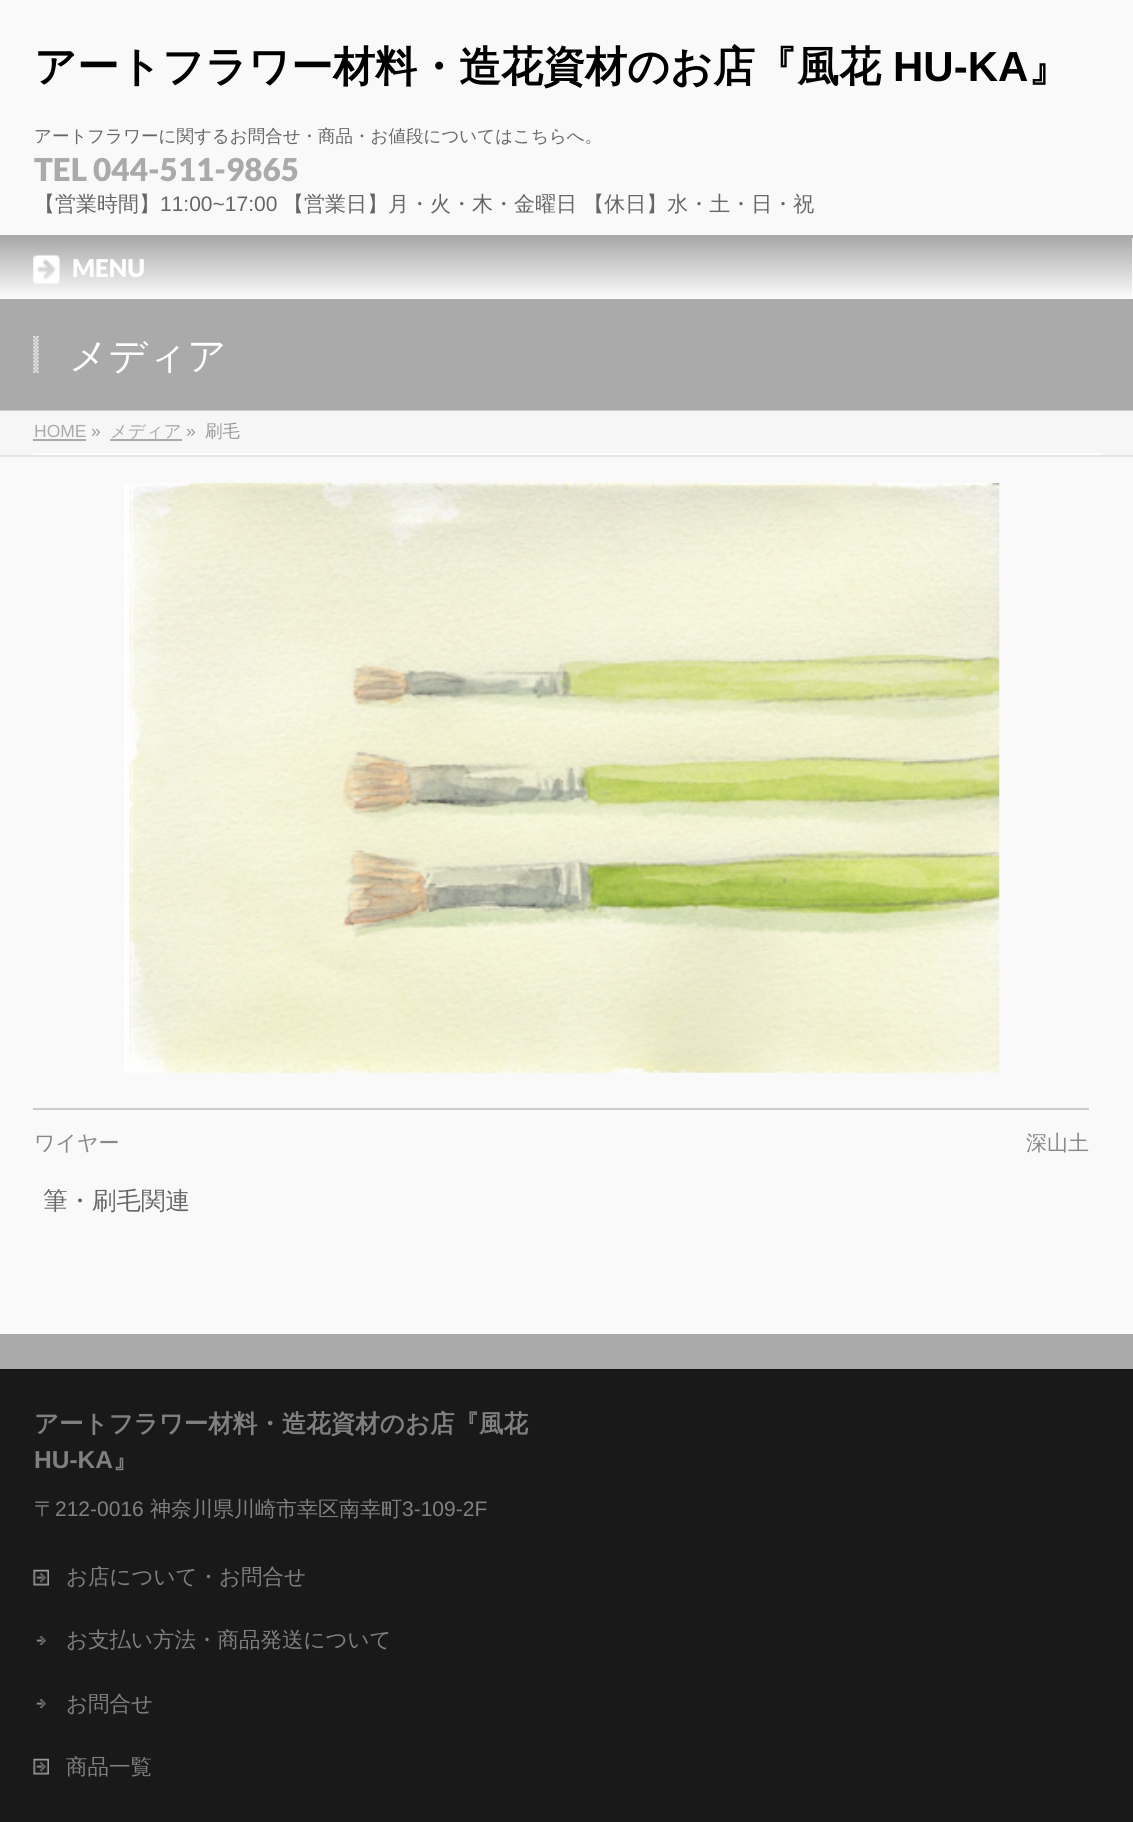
#include <cairo.h>
#include <math.h>
#include <stddef.h>


static void picture(cairo_t *cr, const char *path, double x, double y, double w, double h) {
    cairo_surface_t *image = cairo_image_surface_create_from_png(path);
    cairo_save(cr);
    cairo_set_source_surface(cr, image, x, y);
    cairo_rectangle(cr, x, y, w, h);
    cairo_fill(cr);
    cairo_restore(cr);
    cairo_surface_destroy(image);
}

int main(void) {
    cairo_surface_t *surface = cairo_image_surface_create(CAIRO_FORMAT_RGB24, 1133, 1822);
    cairo_t *cr = cairo_create(surface);
    cairo_font_options_t *options = cairo_font_options_create();
    cairo_font_options_set_hint_metrics(options, CAIRO_HINT_METRICS_OFF);
    cairo_font_options_set_hint_style(options, CAIRO_HINT_STYLE_NONE);
    cairo_set_font_options(cr, options);
    cairo_set_miter_limit(cr, 4);
    cairo_pattern_t *gradient;
    cairo_set_source_rgb(cr, 0.976, 0.976, 0.976);
    cairo_paint(cr);
    cairo_select_font_face(cr, "WenQuanYi Zen Hei", CAIRO_FONT_SLANT_NORMAL, CAIRO_FONT_WEIGHT_BOLD);
    cairo_set_font_size(cr, 42);
    cairo_set_source_rgb(cr, 0, 0, 0);
    cairo_move_to(cr, 34, 81);
    cairo_show_text(cr, "アートフラワー材料・造花資材のお店『風花");
    cairo_select_font_face(cr, "Liberation Sans", CAIRO_FONT_SLANT_NORMAL, CAIRO_FONT_WEIGHT_BOLD);
    cairo_move_to(cr, 893, 81);
    cairo_show_text(cr, "HU-KA");
    cairo_select_font_face(cr, "WenQuanYi Zen Hei", CAIRO_FONT_SLANT_NORMAL, CAIRO_FONT_WEIGHT_BOLD);
    cairo_move_to(cr, 1028, 81);
    cairo_show_text(cr, "』");
    cairo_select_font_face(cr, "WenQuanYi Zen Hei Medium", CAIRO_FONT_SLANT_NORMAL, CAIRO_FONT_WEIGHT_NORMAL);
    cairo_set_font_size(cr, 17.5);
    cairo_set_source_rgb(cr, 0.4, 0.4, 0.4);
    cairo_move_to(cr, 34, 142);
    cairo_show_text(cr, "アートフラワーに関するお問合せ・商品・お値段についてはこちらへ。");
    cairo_select_font_face(cr, "Lato Black", CAIRO_FONT_SLANT_NORMAL, CAIRO_FONT_WEIGHT_NORMAL);
    cairo_set_font_size(cr, 31.5);
    cairo_set_source_rgb(cr, 0.667, 0.667, 0.667);
    cairo_move_to(cr, 34, 181);
    cairo_show_text(cr, "TEL 044-511-9865");
    cairo_select_font_face(cr, "WenQuanYi Zen Hei Medium", CAIRO_FONT_SLANT_NORMAL, CAIRO_FONT_WEIGHT_NORMAL);
    cairo_set_font_size(cr, 21);
    cairo_set_source_rgb(cr, 0.4, 0.4, 0.4);
    cairo_move_to(cr, 34, 211);
    cairo_show_text(cr, "【営業時間】");
    cairo_select_font_face(cr, "Liberation Sans", CAIRO_FONT_SLANT_NORMAL, CAIRO_FONT_WEIGHT_NORMAL);
    cairo_move_to(cr, 160, 211);
    cairo_show_text(cr, "11:00~17:00");
    cairo_select_font_face(cr, "WenQuanYi Zen Hei Medium", CAIRO_FONT_SLANT_NORMAL, CAIRO_FONT_WEIGHT_NORMAL);
    cairo_move_to(cr, 283, 211);
    cairo_show_text(cr, "【営業日】月・火・木・金曜日 【休日】水・土・日・祝");
    cairo_set_source_rgb(cr, 0.667, 0.667, 0.667);
    cairo_rectangle(cr, 0, 235, 1133, 3);
    cairo_fill(cr);
    gradient = cairo_pattern_create_linear(566, 238, 566, 299);
    cairo_pattern_add_color_stop_rgba(gradient, 0, 0.667, 0.667, 0.667, 1);
    cairo_pattern_add_color_stop_rgba(gradient, 1, 0.988, 0.988, 0.988, 1);
    cairo_set_source(cr, gradient);
    cairo_pattern_destroy(gradient);
    cairo_rectangle(cr, 0, 238, 1132, 57);
    cairo_fill(cr);
    cairo_set_source_rgb(cr, 0.988, 0.988, 0.988);
    cairo_rectangle(cr, 1132, 238, 1, 61);
    cairo_fill(cr);
    picture(cr, "img1.png", 33, 255, 27, 29);
    cairo_select_font_face(cr, "Lato Black", CAIRO_FONT_SLANT_NORMAL, CAIRO_FONT_WEIGHT_NORMAL);
    cairo_set_font_size(cr, 24.5);
    cairo_set_source_rgb(cr, 1, 1, 1);
    cairo_move_to(cr, 72, 277);
    cairo_show_text(cr, "MENU");
    cairo_set_source_rgb(cr, 0.667, 0.667, 0.667);
    cairo_rectangle(cr, 0, 299, 1133, 111);
    cairo_fill(cr);
    cairo_set_source_rgb(cr, 0.8, 0.8, 0.8);
    cairo_rectangle(cr, 0, 410, 1133, 1);
    cairo_fill(cr);
    picture(cr, "img2.png", 33, 336, 6, 37);
    cairo_select_font_face(cr, "WenQuanYi Zen Hei Medium", CAIRO_FONT_SLANT_NORMAL, CAIRO_FONT_WEIGHT_NORMAL);
    cairo_set_font_size(cr, 38.5);
    cairo_set_source_rgb(cr, 1, 1, 1);
    cairo_move_to(cr, 69, 369);
    cairo_show_text(cr, "メディア");
    cairo_set_source_rgb(cr, 0.961, 0.961, 0.961);
    cairo_rectangle(cr, 0, 411, 1133, 44);
    cairo_fill(cr);
    cairo_set_source_rgb(cr, 0.898, 0.898, 0.898);
    cairo_rectangle(cr, 0, 455, 1133, 2);
    cairo_fill(cr);
    cairo_set_source_rgb(cr, 1, 1, 1);
    cairo_rectangle(cr, 33, 453, 1068, 2);
    cairo_fill(cr);
    cairo_select_font_face(cr, "Liberation Sans", CAIRO_FONT_SLANT_NORMAL, CAIRO_FONT_WEIGHT_NORMAL);
    cairo_set_font_size(cr, 17.5);
    cairo_set_source_rgb(cr, 0.667, 0.667, 0.667);
    cairo_move_to(cr, 34, 437);
    cairo_show_text(cr, "HOME");
    cairo_rectangle(cr, 33, 439, 53, 2);
    cairo_fill(cr);
    cairo_set_source_rgb(cr, 0.6, 0.6, 0.6);
    cairo_move_to(cr, 91, 437);
    cairo_show_text(cr, "»");
    cairo_set_source_rgb(cr, 0.667, 0.667, 0.667);
    cairo_rectangle(cr, 110, 439, 72, 2);
    cairo_fill(cr);
    cairo_select_font_face(cr, "WenQuanYi Zen Hei Medium", CAIRO_FONT_SLANT_NORMAL, CAIRO_FONT_WEIGHT_NORMAL);
    cairo_move_to(cr, 110, 437);
    cairo_show_text(cr, "メディア");
    cairo_select_font_face(cr, "Liberation Sans", CAIRO_FONT_SLANT_NORMAL, CAIRO_FONT_WEIGHT_NORMAL);
    cairo_set_source_rgb(cr, 0.6, 0.6, 0.6);
    cairo_move_to(cr, 186, 437);
    cairo_show_text(cr, "»");
    cairo_select_font_face(cr, "WenQuanYi Zen Hei Medium", CAIRO_FONT_SLANT_NORMAL, CAIRO_FONT_WEIGHT_NORMAL);
    cairo_move_to(cr, 205, 437);
    cairo_show_text(cr, "刷毛");
    picture(cr, "img3.png", 124, 483, 876, 590);
    cairo_set_source_rgb(cr, 0.8, 0.8, 0.8);
    cairo_rectangle(cr, 33, 1108, 1056, 2);
    cairo_fill(cr);
    cairo_set_font_size(cr, 21);
    cairo_set_source_rgb(cr, 0.533, 0.533, 0.533);
    cairo_move_to(cr, 34, 1150);
    cairo_show_text(cr, "ワイヤー");
    cairo_move_to(cr, 1026, 1150);
    cairo_show_text(cr, "深山土");
    cairo_set_font_size(cr, 24.5);
    cairo_set_source_rgb(cr, 0.4, 0.4, 0.4);
    cairo_move_to(cr, 43, 1209);
    cairo_show_text(cr, "筆・刷毛関連");
    cairo_set_source_rgb(cr, 0.667, 0.667, 0.667);
    cairo_rectangle(cr, 0, 1334, 1133, 35);
    cairo_fill(cr);
    cairo_set_source_rgb(cr, 0.988, 0.988, 0.988);
    cairo_rectangle(cr, 0, 1330, 1133, 4);
    cairo_fill(cr);
    cairo_set_source_rgb(cr, 0.098, 0.098, 0.098);
    cairo_rectangle(cr, 0, 1371, 1133, 451);
    cairo_fill(cr);
    cairo_set_source_rgb(cr, 0.082, 0.082, 0.082);
    cairo_rectangle(cr, 0, 1369, 1133, 2);
    cairo_fill(cr);
    cairo_select_font_face(cr, "WenQuanYi Zen Hei", CAIRO_FONT_SLANT_NORMAL, CAIRO_FONT_WEIGHT_BOLD);
    cairo_set_source_rgb(cr, 0.502, 0.502, 0.502);
    cairo_move_to(cr, 34, 1432);
    cairo_show_text(cr, "アートフラワー材料・造花資材のお店『風花");
    cairo_select_font_face(cr, "Liberation Sans", CAIRO_FONT_SLANT_NORMAL, CAIRO_FONT_WEIGHT_BOLD);
    cairo_move_to(cr, 34, 1468);
    cairo_show_text(cr, "HU-KA");
    cairo_select_font_face(cr, "WenQuanYi Zen Hei", CAIRO_FONT_SLANT_NORMAL, CAIRO_FONT_WEIGHT_BOLD);
    cairo_move_to(cr, 113, 1468);
    cairo_show_text(cr, "』");
    cairo_select_font_face(cr, "WenQuanYi Zen Hei Medium", CAIRO_FONT_SLANT_NORMAL, CAIRO_FONT_WEIGHT_NORMAL);
    cairo_set_font_size(cr, 21);
    cairo_move_to(cr, 34, 1516);
    cairo_show_text(cr, "〒");
    cairo_select_font_face(cr, "Liberation Sans", CAIRO_FONT_SLANT_NORMAL, CAIRO_FONT_WEIGHT_NORMAL);
    cairo_move_to(cr, 55, 1516);
    cairo_show_text(cr, "212-0016");
    cairo_select_font_face(cr, "WenQuanYi Zen Hei Medium", CAIRO_FONT_SLANT_NORMAL, CAIRO_FONT_WEIGHT_NORMAL);
    cairo_move_to(cr, 150, 1516);
    cairo_show_text(cr, "神奈川県川崎市幸区南幸町");
    cairo_select_font_face(cr, "Liberation Sans", CAIRO_FONT_SLANT_NORMAL, CAIRO_FONT_WEIGHT_NORMAL);
    cairo_move_to(cr, 402, 1516);
    cairo_show_text(cr, "3-109-2F");
    picture(cr, "img4.png", 33, 1569, 16, 17);
    cairo_select_font_face(cr, "WenQuanYi Zen Hei Medium", CAIRO_FONT_SLANT_NORMAL, CAIRO_FONT_WEIGHT_NORMAL);
    cairo_set_font_size(cr, 21.5);
    cairo_move_to(cr, 66, 1584);
    cairo_show_text(cr, "お店について・お問合せ");
    picture(cr, "img5.png", 36, 1636, 10, 9);
    cairo_move_to(cr, 66, 1647);
    cairo_show_text(cr, "お支払い方法・商品発送について");
    picture(cr, "img5.png", 36, 1699, 10, 9);
    cairo_move_to(cr, 66, 1711);
    cairo_show_text(cr, "お問合せ");
    picture(cr, "img4.png", 33, 1758, 16, 17);
    cairo_move_to(cr, 66, 1774);
    cairo_show_text(cr, "商品一覧");
    cairo_surface_write_to_png(surface, "page.png");
    cairo_font_options_destroy(options);
    cairo_destroy(cr);
    cairo_surface_destroy(surface);
    return 0;
}
